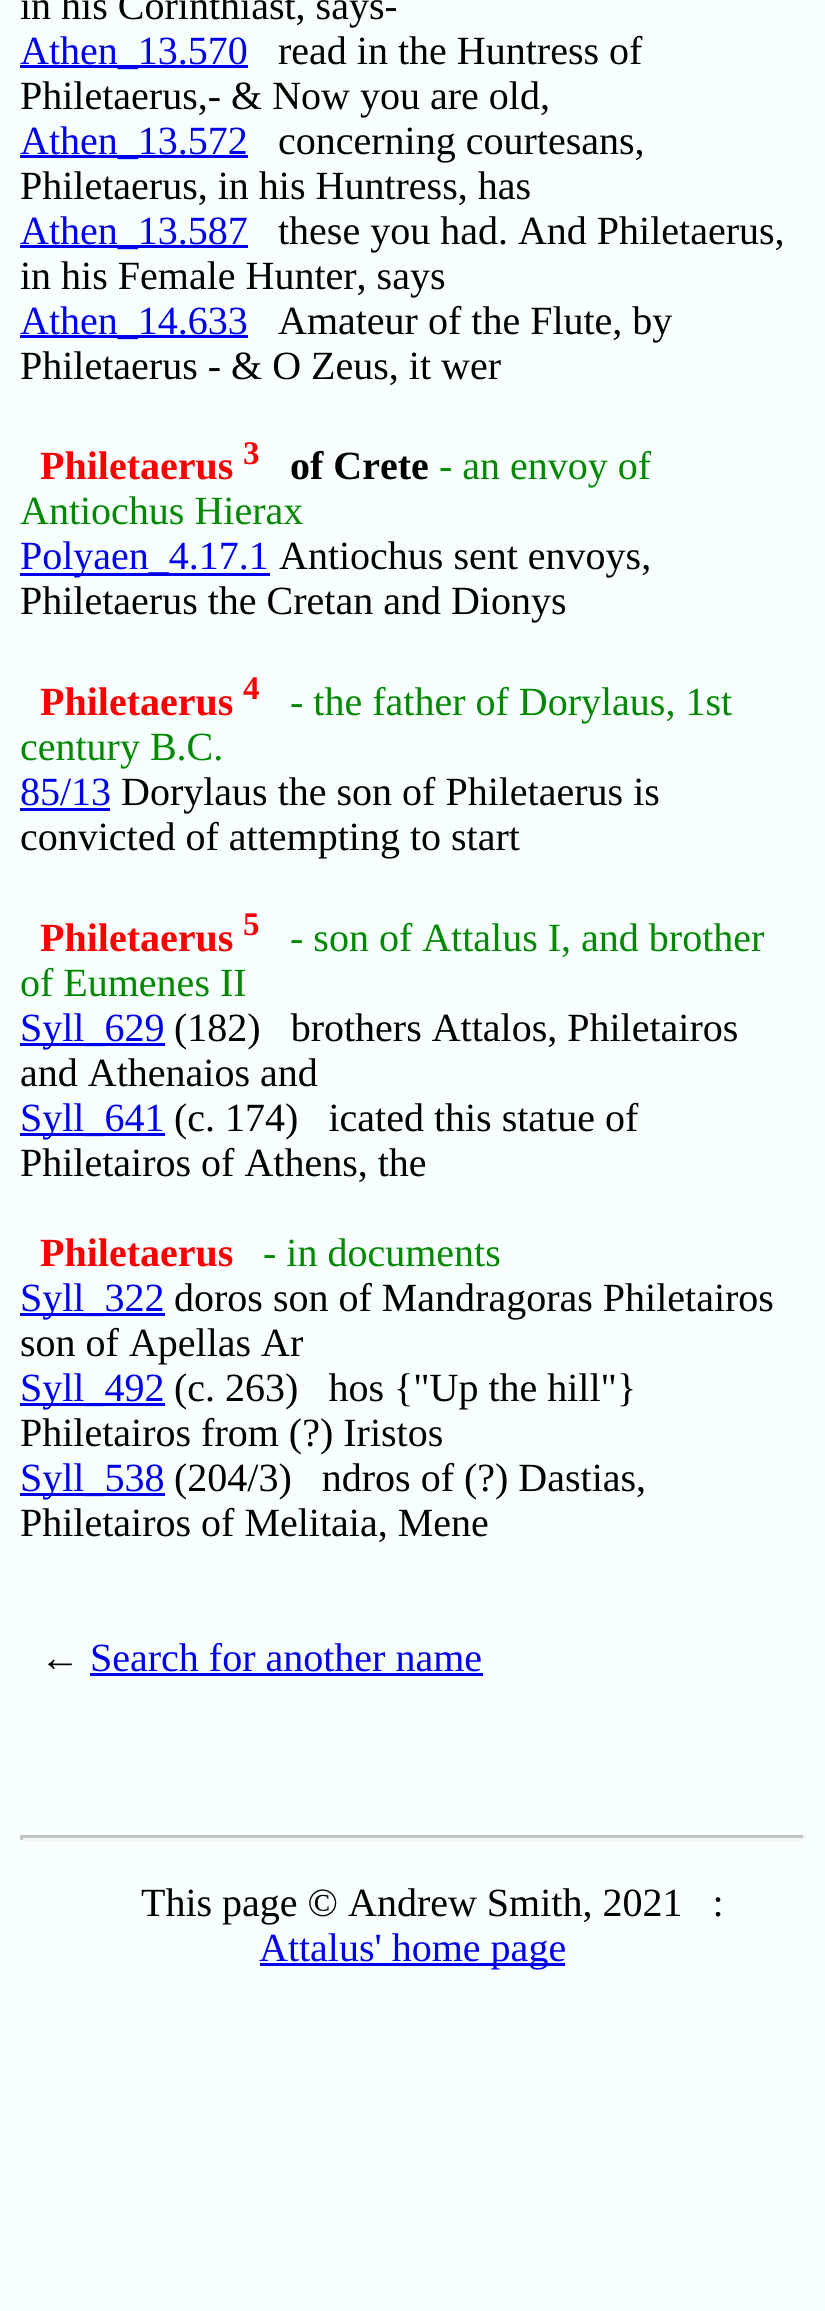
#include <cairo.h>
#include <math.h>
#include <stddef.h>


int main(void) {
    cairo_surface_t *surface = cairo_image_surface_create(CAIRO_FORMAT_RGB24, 825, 2311);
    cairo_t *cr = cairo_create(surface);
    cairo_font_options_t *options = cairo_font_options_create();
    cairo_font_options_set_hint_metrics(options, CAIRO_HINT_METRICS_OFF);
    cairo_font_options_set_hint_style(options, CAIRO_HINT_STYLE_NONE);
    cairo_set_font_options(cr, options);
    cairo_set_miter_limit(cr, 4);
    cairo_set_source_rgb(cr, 0.965, 1, 1);
    cairo_paint(cr);
    cairo_select_font_face(cr, "Liberation Serif", CAIRO_FONT_SLANT_NORMAL, CAIRO_FONT_WEIGHT_NORMAL);
    cairo_set_font_size(cr, 40);
    cairo_set_source_rgb(cr, 0, 0, 0);
    cairo_move_to(cr, 20, 19);
    cairo_show_text(cr, "in his Corinthiast, says-");
    cairo_set_source_rgb(cr, 0, 0, 0.933);
    cairo_rectangle(cr, 20, 65, 228, 3);
    cairo_fill(cr);
    cairo_move_to(cr, 20, 64);
    cairo_show_text(cr, "Athen_13.570");
    cairo_set_source_rgb(cr, 0, 0, 0);
    cairo_move_to(cr, 278, 64);
    cairo_show_text(cr, "read in the Huntress of");
    cairo_move_to(cr, 20, 109);
    cairo_show_text(cr, "Philetaerus,- & Now you are old,");
    cairo_set_source_rgb(cr, 0, 0, 0.933);
    cairo_rectangle(cr, 20, 155, 228, 3);
    cairo_fill(cr);
    cairo_move_to(cr, 20, 154);
    cairo_show_text(cr, "Athen_13.572");
    cairo_set_source_rgb(cr, 0, 0, 0);
    cairo_move_to(cr, 278, 154);
    cairo_show_text(cr, "concerning courtesans,");
    cairo_move_to(cr, 20, 199);
    cairo_show_text(cr, "Philetaerus, in his Huntress, has");
    cairo_set_source_rgb(cr, 0, 0, 0.933);
    cairo_rectangle(cr, 20, 245, 228, 3);
    cairo_fill(cr);
    cairo_move_to(cr, 20, 244);
    cairo_show_text(cr, "Athen_13.587");
    cairo_set_source_rgb(cr, 0, 0, 0);
    cairo_move_to(cr, 278, 244);
    cairo_show_text(cr, "these you had. And Philetaerus,");
    cairo_move_to(cr, 20, 289);
    cairo_show_text(cr, "in his Female Hunter, says");
    cairo_set_source_rgb(cr, 0, 0, 0.933);
    cairo_rectangle(cr, 20, 335, 228, 3);
    cairo_fill(cr);
    cairo_move_to(cr, 20, 334);
    cairo_show_text(cr, "Athen_14.633");
    cairo_set_source_rgb(cr, 0, 0, 0);
    cairo_move_to(cr, 278, 334);
    cairo_show_text(cr, "Amateur of the Flute, by");
    cairo_move_to(cr, 20, 379);
    cairo_show_text(cr, "Philetaerus - & O Zeus, it wer");
    cairo_select_font_face(cr, "Liberation Serif", CAIRO_FONT_SLANT_NORMAL, CAIRO_FONT_WEIGHT_BOLD);
    cairo_set_source_rgb(cr, 0.984, 0, 0);
    cairo_move_to(cr, 40, 479);
    cairo_show_text(cr, "Philetaerus");
    cairo_set_font_size(cr, 33);
    cairo_move_to(cr, 243, 464);
    cairo_show_text(cr, "3");
    cairo_set_font_size(cr, 40);
    cairo_set_source_rgb(cr, 0, 0, 0);
    cairo_move_to(cr, 290, 479);
    cairo_show_text(cr, "of Crete");
    cairo_select_font_face(cr, "Liberation Serif", CAIRO_FONT_SLANT_NORMAL, CAIRO_FONT_WEIGHT_NORMAL);
    cairo_set_source_rgb(cr, 0, 0.533, 0);
    cairo_move_to(cr, 439, 479);
    cairo_show_text(cr, "- an envoy of");
    cairo_move_to(cr, 20, 524);
    cairo_show_text(cr, "Antiochus Hierax");
    cairo_set_source_rgb(cr, 0, 0, 0.933);
    cairo_rectangle(cr, 20, 573, 250, 3);
    cairo_fill(cr);
    cairo_move_to(cr, 20, 569);
    cairo_show_text(cr, "Polyaen_4.17.1");
    cairo_set_source_rgb(cr, 0, 0, 0);
    cairo_move_to(cr, 279, 569);
    cairo_show_text(cr, "Antiochus sent envoys,");
    cairo_move_to(cr, 20, 614);
    cairo_show_text(cr, "Philetaerus the Cretan and Dionys");
    cairo_select_font_face(cr, "Liberation Serif", CAIRO_FONT_SLANT_NORMAL, CAIRO_FONT_WEIGHT_BOLD);
    cairo_set_source_rgb(cr, 0.984, 0, 0);
    cairo_move_to(cr, 40, 715);
    cairo_show_text(cr, "Philetaerus");
    cairo_set_font_size(cr, 33);
    cairo_move_to(cr, 243, 699);
    cairo_show_text(cr, "4");
    cairo_select_font_face(cr, "Liberation Serif", CAIRO_FONT_SLANT_NORMAL, CAIRO_FONT_WEIGHT_NORMAL);
    cairo_set_font_size(cr, 40);
    cairo_set_source_rgb(cr, 0, 0.533, 0);
    cairo_move_to(cr, 290, 715);
    cairo_show_text(cr, "- the father of Dorylaus, 1st");
    cairo_move_to(cr, 20, 760);
    cairo_show_text(cr, "century B.C.");
    cairo_set_source_rgb(cr, 0, 0, 0.933);
    cairo_move_to(cr, 20, 805);
    cairo_show_text(cr, "85/13");
    cairo_rectangle(cr, 20, 808, 90, 3);
    cairo_fill(cr);
    cairo_set_source_rgb(cr, 0, 0, 0);
    cairo_move_to(cr, 121, 805);
    cairo_show_text(cr, "Dorylaus the son of Philetaerus is");
    cairo_move_to(cr, 20, 850);
    cairo_show_text(cr, "convicted of attempting to start");
    cairo_select_font_face(cr, "Liberation Serif", CAIRO_FONT_SLANT_NORMAL, CAIRO_FONT_WEIGHT_BOLD);
    cairo_set_source_rgb(cr, 0.984, 0, 0);
    cairo_move_to(cr, 40, 951);
    cairo_show_text(cr, "Philetaerus");
    cairo_set_font_size(cr, 33);
    cairo_move_to(cr, 243, 935);
    cairo_show_text(cr, "5");
    cairo_select_font_face(cr, "Liberation Serif", CAIRO_FONT_SLANT_NORMAL, CAIRO_FONT_WEIGHT_NORMAL);
    cairo_set_font_size(cr, 40);
    cairo_set_source_rgb(cr, 0, 0.533, 0);
    cairo_move_to(cr, 290, 951);
    cairo_show_text(cr, "- son of Attalus I, and brother");
    cairo_move_to(cr, 20, 996);
    cairo_show_text(cr, "of Eumenes II");
    cairo_set_source_rgb(cr, 0, 0, 0.933);
    cairo_rectangle(cr, 20, 1043, 145, 3);
    cairo_fill(cr);
    cairo_move_to(cr, 20, 1041);
    cairo_show_text(cr, "Syll_629");
    cairo_set_source_rgb(cr, 0, 0, 0);
    cairo_move_to(cr, 174, 1041);
    cairo_show_text(cr, "(182)   brothers Attalos, Philetairos");
    cairo_move_to(cr, 20, 1086);
    cairo_show_text(cr, "and Athenaios and");
    cairo_set_source_rgb(cr, 0, 0, 0.933);
    cairo_rectangle(cr, 20, 1133, 145, 3);
    cairo_fill(cr);
    cairo_move_to(cr, 20, 1131);
    cairo_show_text(cr, "Syll_641");
    cairo_set_source_rgb(cr, 0, 0, 0);
    cairo_move_to(cr, 174, 1131);
    cairo_show_text(cr, "(c. 174)   icated this statue of");
    cairo_move_to(cr, 20, 1176);
    cairo_show_text(cr, "Philetairos of Athens, the");
    cairo_select_font_face(cr, "Liberation Serif", CAIRO_FONT_SLANT_NORMAL, CAIRO_FONT_WEIGHT_BOLD);
    cairo_set_source_rgb(cr, 0.984, 0, 0);
    cairo_move_to(cr, 40, 1266);
    cairo_show_text(cr, "Philetaerus");
    cairo_select_font_face(cr, "Liberation Serif", CAIRO_FONT_SLANT_NORMAL, CAIRO_FONT_WEIGHT_NORMAL);
    cairo_set_source_rgb(cr, 0, 0.533, 0);
    cairo_move_to(cr, 263, 1266);
    cairo_show_text(cr, "- in documents");
    cairo_set_source_rgb(cr, 0, 0, 0.933);
    cairo_rectangle(cr, 20, 1313, 145, 3);
    cairo_fill(cr);
    cairo_move_to(cr, 20, 1311);
    cairo_show_text(cr, "Syll_322");
    cairo_set_source_rgb(cr, 0, 0, 0);
    cairo_move_to(cr, 174, 1311);
    cairo_show_text(cr, "doros son of Mandragoras Philetairos");
    cairo_move_to(cr, 20, 1356);
    cairo_show_text(cr, "son of Apellas Ar");
    cairo_set_source_rgb(cr, 0, 0, 0.933);
    cairo_rectangle(cr, 20, 1403, 145, 3);
    cairo_fill(cr);
    cairo_move_to(cr, 20, 1401);
    cairo_show_text(cr, "Syll_492");
    cairo_set_source_rgb(cr, 0, 0, 0);
    cairo_move_to(cr, 174, 1401);
    cairo_show_text(cr, "(c. 263)   hos {\"Up the hill\"}");
    cairo_move_to(cr, 20, 1446);
    cairo_show_text(cr, "Philetairos from (?) Iristos");
    cairo_set_source_rgb(cr, 0, 0, 0.933);
    cairo_rectangle(cr, 20, 1493, 145, 3);
    cairo_fill(cr);
    cairo_move_to(cr, 20, 1491);
    cairo_show_text(cr, "Syll_538");
    cairo_set_source_rgb(cr, 0, 0, 0);
    cairo_move_to(cr, 174, 1491);
    cairo_show_text(cr, "(204/3)   ndros of (?) Dastias,");
    cairo_move_to(cr, 20, 1536);
    cairo_show_text(cr, "Philetairos of Melitaia, Mene");
    cairo_move_to(cr, 40, 1671);
    cairo_show_text(cr, "←");
    cairo_set_source_rgb(cr, 0, 0, 0.933);
    cairo_move_to(cr, 90, 1671);
    cairo_show_text(cr, "Search for another name");
    cairo_rectangle(cr, 90, 1673, 393, 3);
    cairo_fill(cr);
    cairo_set_source_rgb(cr, 0.761, 0.773, 0.773);
    cairo_rectangle(cr, 20, 1835, 785, 3);
    cairo_fill(cr);
    cairo_set_source_rgb(cr, 0.945, 0.961, 0.961);
    cairo_rectangle(cr, 803, 1835, 3, 5);
    cairo_fill(cr);
    cairo_rectangle(cr, 20, 1838, 785, 3);
    cairo_fill(cr);
    cairo_set_source_rgb(cr, 0.761, 0.773, 0.773);
    cairo_rectangle(cr, 20, 1835, 3, 5);
    cairo_fill(cr);
    cairo_set_source_rgb(cr, 0, 0, 0);
    cairo_move_to(cr, 141, 1916);
    cairo_show_text(cr, "This page © Andrew Smith, 2021   :");
    cairo_set_source_rgb(cr, 0, 0, 0.933);
    cairo_rectangle(cr, 260, 1963, 305, 3);
    cairo_fill(cr);
    cairo_move_to(cr, 259, 1961);
    cairo_show_text(cr, "Attalus' home page");
    cairo_surface_write_to_png(surface, "page.png");
    cairo_font_options_destroy(options);
    cairo_destroy(cr);
    cairo_surface_destroy(surface);
    return 0;
}
